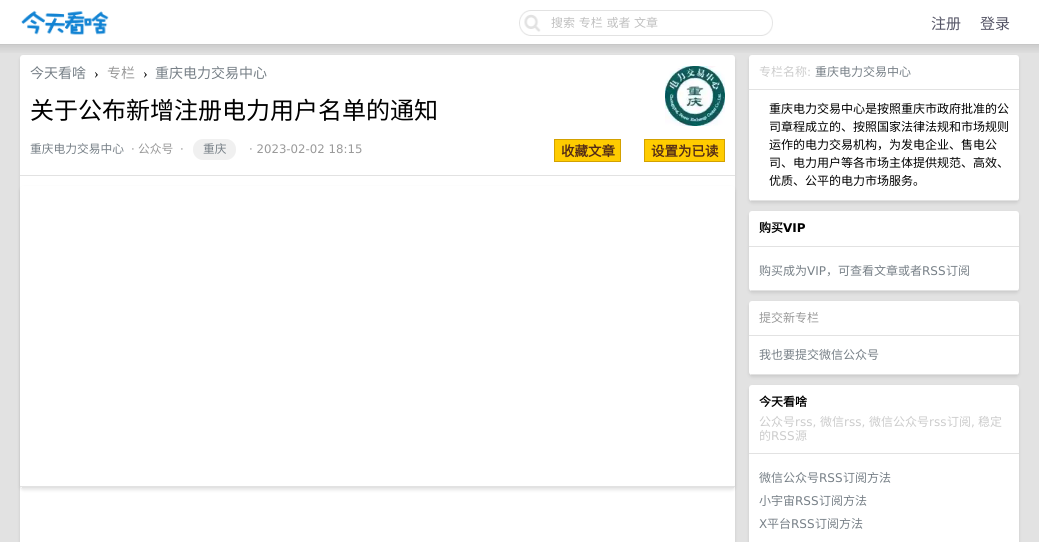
#include <cairo.h>
#include <math.h>
#include <stddef.h>


static void spaced_text(cairo_t *cr, double x, double y, const char *s, double letter, double word) {
    cairo_move_to(cr, x, y);
    while (*s) {
        char ch[5] = {0};
        int n = 0;
        do ch[n++] = *s++; while ((*s & 0xC0) == 0x80);
        cairo_show_text(cr, ch);
        cairo_rel_move_to(cr, letter + word * (*ch == ' '), 0);
    }
}

static void round_rect(cairo_t *cr, double x, double y, double w, double h, double r) {
    cairo_new_sub_path(cr);
    cairo_arc(cr, x + w - r, y + h - r, r, 0, M_PI / 2);
    cairo_arc(cr, x + r, y + h - r, r, M_PI / 2, M_PI);
    cairo_arc(cr, x + r, y + r, r, M_PI, 1.5 * M_PI);
    cairo_arc(cr, x + w - r, y + r, r, 1.5 * M_PI, 2 * M_PI);
    cairo_close_path(cr);
}

static void shadow(cairo_t *cr, double x, double y, double w, double h, double r, double blur, double alpha) {
    cairo_push_group_with_content(cr, CAIRO_CONTENT_ALPHA);
    cairo_set_operator(cr, CAIRO_OPERATOR_SOURCE);
    for (int i = 15; i >= -15 && fmin(w, h) + blur * i / 3 > 0; i -= 2) {
        double e = blur * i / 6;
        cairo_set_source_rgba(cr, 0, 0, 0, alpha * erfc((i - 1) / 8.5) / 2);
        round_rect(cr, x - e, y - e, w + 2 * e, h + 2 * e, fmax(0, fmin(r + e + blur * .6, fmin(w, h) / 2 + e)));
        cairo_fill(cr);
    }
    cairo_pattern_t *soft = cairo_pop_group(cr);
    cairo_mask(cr, soft);
    cairo_pattern_destroy(soft);
}

static void picture(cairo_t *cr, const char *path, double x, double y, double w, double h) {
    cairo_surface_t *image = cairo_image_surface_create_from_png(path);
    cairo_save(cr);
    cairo_set_source_surface(cr, image, x, y);
    cairo_rectangle(cr, x, y, w, h);
    cairo_fill(cr);
    cairo_restore(cr);
    cairo_surface_destroy(image);
}

int main(void) {
    cairo_surface_t *surface = cairo_image_surface_create(CAIRO_FORMAT_RGB24, 1039, 542);
    cairo_t *cr = cairo_create(surface);
    cairo_font_options_t *options = cairo_font_options_create();
    cairo_font_options_set_hint_metrics(options, CAIRO_HINT_METRICS_OFF);
    cairo_font_options_set_hint_style(options, CAIRO_HINT_STYLE_NONE);
    cairo_set_font_options(cr, options);
    cairo_set_miter_limit(cr, 4);
    cairo_set_source_rgb(cr, 1, 1, 1);
    cairo_paint(cr);
    cairo_set_source_rgb(cr, 0.78, 0.78, 0.78);
    cairo_rectangle(cr, 0, 44, 1039, 1);
    cairo_fill(cr);
    picture(cr, "img1.png", 21, 10, 88, 25);
    picture(cr, "img2.png", 519, 10, 254, 26);
    cairo_select_font_face(cr, "Noto Sans CJK SC", CAIRO_FONT_SLANT_NORMAL, CAIRO_FONT_WEIGHT_NORMAL);
    cairo_set_font_size(cr, 12);
    cairo_set_source_rgb(cr, 0.753, 0.753, 0.753);
    spaced_text(cr, 551, 27, "搜索 专栏 或者 文章", 0, 1);
    cairo_set_font_size(cr, 15);
    cairo_set_source_rgb(cr, 0.333, 0.333, 0.4);
    cairo_move_to(cr, 931, 29);
    cairo_show_text(cr, "注册");
    cairo_move_to(cr, 980, 29);
    cairo_show_text(cr, "登录");
    cairo_set_source_rgb(cr, 0.886, 0.886, 0.886);
    cairo_rectangle(cr, 0, 45, 1039, 497);
    cairo_fill(cr);
    picture(cr, "img3.png", 0, 45, 1039, 8);
    cairo_set_source_rgb(cr, 0, 0, 0);
    shadow(cr, 20, 57, 715, 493, 3, 1.5, 0.1);
    cairo_set_source_rgb(cr, 1, 1, 1);
    round_rect(cr, 20, 55, 715, 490, 3);
    cairo_fill(cr);
    cairo_set_source_rgb(cr, 0.886, 0.886, 0.886);
    cairo_rectangle(cr, 20, 175, 715, 1);
    cairo_fill(cr);
    cairo_set_font_size(cr, 14);
    cairo_set_source_rgb(cr, 0.467, 0.502, 0.529);
    cairo_move_to(cr, 30, 78);
    cairo_show_text(cr, "今天看啥");
    cairo_select_font_face(cr, "Liberation Serif", CAIRO_FONT_SLANT_NORMAL, CAIRO_FONT_WEIGHT_NORMAL);
    cairo_set_source_rgb(cr, 0, 0, 0);
    cairo_move_to(cr, 94, 78);
    cairo_show_text(cr, "›");
    cairo_select_font_face(cr, "Noto Sans CJK SC", CAIRO_FONT_SLANT_NORMAL, CAIRO_FONT_WEIGHT_NORMAL);
    cairo_set_source_rgb(cr, 0.6, 0.6, 0.6);
    cairo_move_to(cr, 107, 78);
    cairo_show_text(cr, "专栏");
    cairo_select_font_face(cr, "Liberation Serif", CAIRO_FONT_SLANT_NORMAL, CAIRO_FONT_WEIGHT_NORMAL);
    cairo_set_source_rgb(cr, 0, 0, 0);
    cairo_move_to(cr, 143, 78);
    cairo_show_text(cr, "›");
    cairo_select_font_face(cr, "Noto Sans CJK SC", CAIRO_FONT_SLANT_NORMAL, CAIRO_FONT_WEIGHT_NORMAL);
    cairo_set_source_rgb(cr, 0.467, 0.502, 0.529);
    cairo_move_to(cr, 155, 78);
    cairo_show_text(cr, "重庆电力交易中心");
    picture(cr, "img4.png", 665, 66, 60, 60);
    cairo_set_font_size(cr, 24);
    cairo_set_source_rgb(cr, 0, 0, 0);
    cairo_move_to(cr, 30, 119);
    cairo_show_text(cr, "关于公布新增注册电力用户名单的通知");
    cairo_set_font_size(cr, 11.75);
    cairo_set_source_rgb(cr, 0.467, 0.502, 0.529);
    cairo_move_to(cr, 30, 153);
    cairo_show_text(cr, "重庆电力交易中心");
    cairo_select_font_face(cr, "DejaVu Sans", CAIRO_FONT_SLANT_NORMAL, CAIRO_FONT_WEIGHT_NORMAL);
    cairo_set_source_rgb(cr, 0.6, 0.6, 0.6);
    cairo_move_to(cr, 131, 153);
    cairo_show_text(cr, "·");
    cairo_select_font_face(cr, "Noto Sans CJK SC", CAIRO_FONT_SLANT_NORMAL, CAIRO_FONT_WEIGHT_NORMAL);
    cairo_move_to(cr, 138, 153);
    cairo_show_text(cr, "公众号");
    cairo_select_font_face(cr, "DejaVu Sans", CAIRO_FONT_SLANT_NORMAL, CAIRO_FONT_WEIGHT_NORMAL);
    cairo_move_to(cr, 180, 153);
    cairo_show_text(cr, "·");
    cairo_set_source_rgb(cr, 0.941, 0.941, 0.941);
    round_rect(cr, 193, 139, 43, 21, 10);
    cairo_fill(cr);
    cairo_select_font_face(cr, "Noto Sans CJK SC", CAIRO_FONT_SLANT_NORMAL, CAIRO_FONT_WEIGHT_NORMAL);
    cairo_set_source_rgb(cr, 0.467, 0.502, 0.529);
    cairo_move_to(cr, 203, 153);
    cairo_show_text(cr, "重庆");
    cairo_select_font_face(cr, "DejaVu Sans", CAIRO_FONT_SLANT_NORMAL, CAIRO_FONT_WEIGHT_NORMAL);
    cairo_set_source_rgb(cr, 0.6, 0.6, 0.6);
    cairo_move_to(cr, 249, 153);
    cairo_show_text(cr, "· 2023-02-02 18:15");
    cairo_set_source_rgb(cr, 1, 0.8, 0);
    cairo_rectangle(cr, 554.5, 139.5, 66, 22);
    cairo_fill_preserve(cr);
    cairo_set_source_rgb(cr, 0.827, 0.631, 0);
    cairo_set_line_width(cr, 1);
    cairo_stroke(cr);
    cairo_select_font_face(cr, "Noto Sans CJK SC", CAIRO_FONT_SLANT_NORMAL, CAIRO_FONT_WEIGHT_BOLD);
    cairo_set_font_size(cr, 13.5);
    cairo_set_source_rgb(cr, 0.325, 0.169, 0.09);
    cairo_move_to(cr, 561, 156);
    cairo_show_text(cr, "收藏文章");
    cairo_set_source_rgb(cr, 1, 0.8, 0);
    cairo_rectangle(cr, 644.5, 139.5, 80, 22);
    cairo_fill_preserve(cr);
    cairo_set_source_rgb(cr, 0.827, 0.631, 0);
    cairo_stroke(cr);
    cairo_set_source_rgb(cr, 0.325, 0.169, 0.09);
    cairo_move_to(cr, 651, 156);
    cairo_show_text(cr, "设置为已读");
    cairo_set_source_rgb(cr, 0, 0, 0);
    shadow(cr, 20, 188, 715, 302, 3, 1.5, 0.1);
    cairo_set_source_rgb(cr, 1, 1, 1);
    round_rect(cr, 20, 186, 715, 302, 3);
    cairo_fill(cr);
    cairo_set_source_rgb(cr, 0.886, 0.886, 0.886);
    cairo_rectangle(cr, 22, 487, 712, 1);
    cairo_fill(cr);
    cairo_rectangle(cr, 20, 486, 715, 1);
    cairo_fill(cr);
    cairo_set_source_rgb(cr, 0, 0, 0);
    shadow(cr, 749, 57, 270, 146, 3, 1.5, 0.1);
    cairo_set_source_rgb(cr, 1, 1, 1);
    round_rect(cr, 749, 55, 270, 146, 3);
    cairo_fill(cr);
    cairo_set_source_rgb(cr, 0.886, 0.886, 0.886);
    cairo_rectangle(cr, 751, 200, 267, 1);
    cairo_fill(cr);
    cairo_rectangle(cr, 749, 89, 270, 1);
    cairo_fill(cr);
    cairo_select_font_face(cr, "Noto Sans CJK SC", CAIRO_FONT_SLANT_NORMAL, CAIRO_FONT_WEIGHT_NORMAL);
    cairo_set_font_size(cr, 12);
    cairo_set_source_rgb(cr, 0.8, 0.8, 0.8);
    cairo_move_to(cr, 759, 76);
    cairo_show_text(cr, "专栏名称");
    cairo_select_font_face(cr, "DejaVu Sans", CAIRO_FONT_SLANT_NORMAL, CAIRO_FONT_WEIGHT_NORMAL);
    cairo_move_to(cr, 807, 76);
    cairo_show_text(cr, ":");
    cairo_select_font_face(cr, "Noto Sans CJK SC", CAIRO_FONT_SLANT_NORMAL, CAIRO_FONT_WEIGHT_NORMAL);
    cairo_set_source_rgb(cr, 0.467, 0.502, 0.529);
    cairo_move_to(cr, 815, 76);
    cairo_show_text(cr, "重庆电力交易中心");
    cairo_set_source_rgb(cr, 0, 0, 0);
    cairo_move_to(cr, 769, 113);
    cairo_show_text(cr, "重庆电力交易中心是按照重庆市政府批准的公");
    cairo_move_to(cr, 769, 131);
    cairo_show_text(cr, "司章程成立的、按照国家法律法规和市场规则");
    cairo_move_to(cr, 769, 149);
    cairo_show_text(cr, "运作的电力交易机构，为发电企业、售电公");
    cairo_move_to(cr, 769, 167);
    cairo_show_text(cr, "司、电力用户等各市场主体提供规范、高效、");
    cairo_move_to(cr, 769, 185);
    cairo_show_text(cr, "优质、公平的电力市场服务。");
    cairo_set_source_rgb(cr, 0, 0, 0);
    shadow(cr, 749, 213, 270, 80, 3, 1.5, 0.1);
    cairo_set_source_rgb(cr, 1, 1, 1);
    round_rect(cr, 749, 211, 270, 80, 3);
    cairo_fill(cr);
    cairo_set_source_rgb(cr, 0.886, 0.886, 0.886);
    cairo_rectangle(cr, 751, 290, 267, 1);
    cairo_fill(cr);
    cairo_rectangle(cr, 749, 246, 270, 1);
    cairo_fill(cr);
    cairo_select_font_face(cr, "Noto Sans CJK SC", CAIRO_FONT_SLANT_NORMAL, CAIRO_FONT_WEIGHT_BOLD);
    cairo_set_source_rgb(cr, 0, 0, 0);
    cairo_move_to(cr, 759, 232);
    cairo_show_text(cr, "购买");
    cairo_select_font_face(cr, "DejaVu Sans", CAIRO_FONT_SLANT_NORMAL, CAIRO_FONT_WEIGHT_BOLD);
    cairo_move_to(cr, 783, 232);
    cairo_show_text(cr, "VIP");
    cairo_select_font_face(cr, "Noto Sans CJK SC", CAIRO_FONT_SLANT_NORMAL, CAIRO_FONT_WEIGHT_NORMAL);
    cairo_set_source_rgb(cr, 0.467, 0.502, 0.529);
    cairo_move_to(cr, 759, 275);
    cairo_show_text(cr, "购买成为");
    cairo_select_font_face(cr, "DejaVu Sans", CAIRO_FONT_SLANT_NORMAL, CAIRO_FONT_WEIGHT_NORMAL);
    cairo_move_to(cr, 807, 275);
    cairo_show_text(cr, "VIP");
    cairo_select_font_face(cr, "Noto Sans CJK SC", CAIRO_FONT_SLANT_NORMAL, CAIRO_FONT_WEIGHT_NORMAL);
    cairo_move_to(cr, 826, 275);
    cairo_show_text(cr, "，可查看文章或者");
    cairo_select_font_face(cr, "DejaVu Sans", CAIRO_FONT_SLANT_NORMAL, CAIRO_FONT_WEIGHT_NORMAL);
    cairo_move_to(cr, 922, 275);
    cairo_show_text(cr, "RSS");
    cairo_select_font_face(cr, "Noto Sans CJK SC", CAIRO_FONT_SLANT_NORMAL, CAIRO_FONT_WEIGHT_NORMAL);
    cairo_move_to(cr, 946, 275);
    cairo_show_text(cr, "订阅");
    cairo_set_source_rgb(cr, 0, 0, 0);
    shadow(cr, 749, 303, 270, 74, 3, 1.5, 0.1);
    cairo_set_source_rgb(cr, 1, 1, 1);
    round_rect(cr, 749, 301, 270, 74, 3);
    cairo_fill(cr);
    cairo_set_source_rgb(cr, 0.886, 0.886, 0.886);
    cairo_rectangle(cr, 751, 374, 267, 1);
    cairo_fill(cr);
    cairo_rectangle(cr, 749, 335, 270, 1);
    cairo_fill(cr);
    cairo_set_source_rgb(cr, 0.6, 0.6, 0.6);
    cairo_move_to(cr, 759, 322);
    cairo_show_text(cr, "提交新专栏");
    cairo_set_source_rgb(cr, 0.467, 0.502, 0.529);
    cairo_move_to(cr, 759, 359);
    cairo_show_text(cr, "我也要提交微信公众号");
    cairo_set_source_rgb(cr, 0, 0, 0);
    shadow(cr, 749, 387, 270, 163, 3, 1.5, 0.1);
    cairo_set_source_rgb(cr, 1, 1, 1);
    round_rect(cr, 749, 385, 270, 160, 3);
    cairo_fill(cr);
    cairo_set_source_rgb(cr, 0.886, 0.886, 0.886);
    cairo_rectangle(cr, 749, 453, 270, 1);
    cairo_fill(cr);
    cairo_select_font_face(cr, "Noto Sans CJK SC", CAIRO_FONT_SLANT_NORMAL, CAIRO_FONT_WEIGHT_BOLD);
    cairo_set_source_rgb(cr, 0, 0, 0);
    cairo_move_to(cr, 759, 406);
    cairo_show_text(cr, "今天看啥");
    cairo_select_font_face(cr, "Noto Sans CJK SC", CAIRO_FONT_SLANT_NORMAL, CAIRO_FONT_WEIGHT_NORMAL);
    cairo_set_source_rgb(cr, 0.8, 0.8, 0.8);
    cairo_move_to(cr, 759, 426);
    cairo_show_text(cr, "公众号");
    cairo_select_font_face(cr, "DejaVu Sans", CAIRO_FONT_SLANT_NORMAL, CAIRO_FONT_WEIGHT_NORMAL);
    cairo_move_to(cr, 795, 426);
    cairo_show_text(cr, "rss,");
    cairo_select_font_face(cr, "Noto Sans CJK SC", CAIRO_FONT_SLANT_NORMAL, CAIRO_FONT_WEIGHT_NORMAL);
    cairo_move_to(cr, 820, 426);
    cairo_show_text(cr, "微信");
    cairo_select_font_face(cr, "DejaVu Sans", CAIRO_FONT_SLANT_NORMAL, CAIRO_FONT_WEIGHT_NORMAL);
    cairo_move_to(cr, 844, 426);
    cairo_show_text(cr, "rss,");
    cairo_select_font_face(cr, "Noto Sans CJK SC", CAIRO_FONT_SLANT_NORMAL, CAIRO_FONT_WEIGHT_NORMAL);
    cairo_move_to(cr, 869, 426);
    cairo_show_text(cr, "微信公众号");
    cairo_select_font_face(cr, "DejaVu Sans", CAIRO_FONT_SLANT_NORMAL, CAIRO_FONT_WEIGHT_NORMAL);
    cairo_move_to(cr, 929, 426);
    cairo_show_text(cr, "rss");
    cairo_select_font_face(cr, "Noto Sans CJK SC", CAIRO_FONT_SLANT_NORMAL, CAIRO_FONT_WEIGHT_NORMAL);
    cairo_move_to(cr, 947, 426);
    cairo_show_text(cr, "订阅");
    cairo_select_font_face(cr, "DejaVu Sans", CAIRO_FONT_SLANT_NORMAL, CAIRO_FONT_WEIGHT_NORMAL);
    cairo_move_to(cr, 971, 426);
    cairo_show_text(cr, ",");
    cairo_select_font_face(cr, "Noto Sans CJK SC", CAIRO_FONT_SLANT_NORMAL, CAIRO_FONT_WEIGHT_NORMAL);
    cairo_move_to(cr, 978, 426);
    cairo_show_text(cr, "稳定");
    cairo_move_to(cr, 759, 440);
    cairo_show_text(cr, "的");
    cairo_select_font_face(cr, "DejaVu Sans", CAIRO_FONT_SLANT_NORMAL, CAIRO_FONT_WEIGHT_NORMAL);
    cairo_move_to(cr, 771, 440);
    cairo_show_text(cr, "RSS");
    cairo_select_font_face(cr, "Noto Sans CJK SC", CAIRO_FONT_SLANT_NORMAL, CAIRO_FONT_WEIGHT_NORMAL);
    cairo_move_to(cr, 795, 440);
    cairo_show_text(cr, "源");
    cairo_set_source_rgb(cr, 0.467, 0.502, 0.529);
    cairo_move_to(cr, 759, 482);
    cairo_show_text(cr, "微信公众号");
    cairo_select_font_face(cr, "DejaVu Sans", CAIRO_FONT_SLANT_NORMAL, CAIRO_FONT_WEIGHT_NORMAL);
    cairo_move_to(cr, 819, 482);
    cairo_show_text(cr, "RSS");
    cairo_select_font_face(cr, "Noto Sans CJK SC", CAIRO_FONT_SLANT_NORMAL, CAIRO_FONT_WEIGHT_NORMAL);
    cairo_move_to(cr, 843, 482);
    cairo_show_text(cr, "订阅方法");
    cairo_move_to(cr, 759, 505);
    cairo_show_text(cr, "小宇宙");
    cairo_select_font_face(cr, "DejaVu Sans", CAIRO_FONT_SLANT_NORMAL, CAIRO_FONT_WEIGHT_NORMAL);
    cairo_move_to(cr, 795, 505);
    cairo_show_text(cr, "RSS");
    cairo_select_font_face(cr, "Noto Sans CJK SC", CAIRO_FONT_SLANT_NORMAL, CAIRO_FONT_WEIGHT_NORMAL);
    cairo_move_to(cr, 819, 505);
    cairo_show_text(cr, "订阅方法");
    cairo_select_font_face(cr, "DejaVu Sans", CAIRO_FONT_SLANT_NORMAL, CAIRO_FONT_WEIGHT_NORMAL);
    cairo_move_to(cr, 759, 528);
    cairo_show_text(cr, "X");
    cairo_select_font_face(cr, "Noto Sans CJK SC", CAIRO_FONT_SLANT_NORMAL, CAIRO_FONT_WEIGHT_NORMAL);
    cairo_move_to(cr, 767, 528);
    cairo_show_text(cr, "平台");
    cairo_select_font_face(cr, "DejaVu Sans", CAIRO_FONT_SLANT_NORMAL, CAIRO_FONT_WEIGHT_NORMAL);
    cairo_move_to(cr, 791, 528);
    cairo_show_text(cr, "RSS");
    cairo_select_font_face(cr, "Noto Sans CJK SC", CAIRO_FONT_SLANT_NORMAL, CAIRO_FONT_WEIGHT_NORMAL);
    cairo_move_to(cr, 815, 528);
    cairo_show_text(cr, "订阅方法");
    cairo_surface_write_to_png(surface, "page.png");
    cairo_font_options_destroy(options);
    cairo_destroy(cr);
    cairo_surface_destroy(surface);
    return 0;
}
